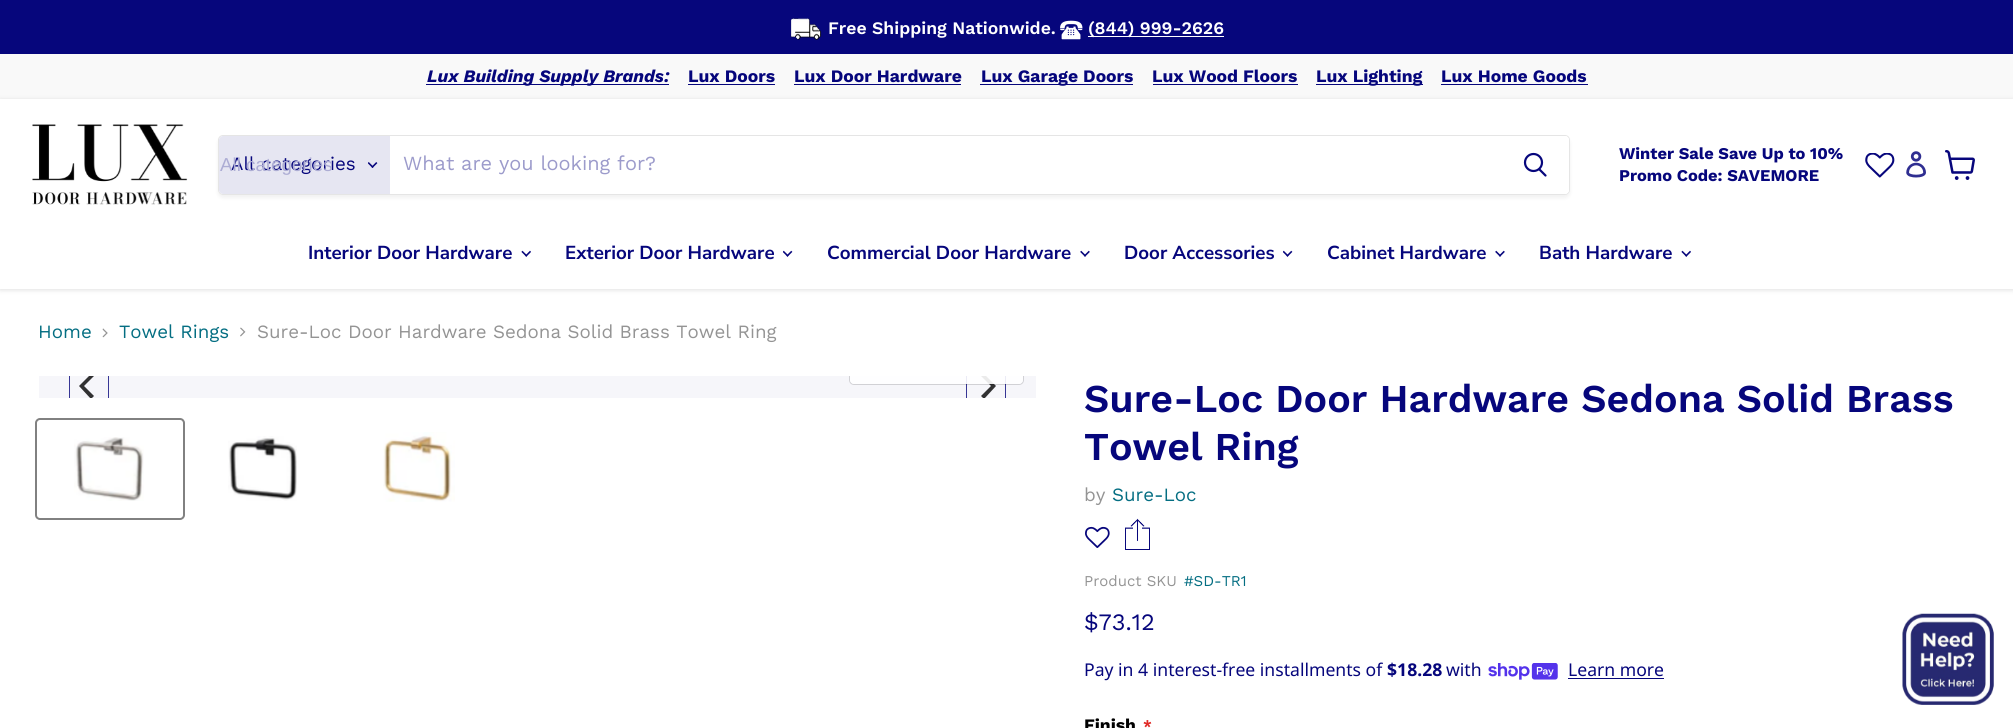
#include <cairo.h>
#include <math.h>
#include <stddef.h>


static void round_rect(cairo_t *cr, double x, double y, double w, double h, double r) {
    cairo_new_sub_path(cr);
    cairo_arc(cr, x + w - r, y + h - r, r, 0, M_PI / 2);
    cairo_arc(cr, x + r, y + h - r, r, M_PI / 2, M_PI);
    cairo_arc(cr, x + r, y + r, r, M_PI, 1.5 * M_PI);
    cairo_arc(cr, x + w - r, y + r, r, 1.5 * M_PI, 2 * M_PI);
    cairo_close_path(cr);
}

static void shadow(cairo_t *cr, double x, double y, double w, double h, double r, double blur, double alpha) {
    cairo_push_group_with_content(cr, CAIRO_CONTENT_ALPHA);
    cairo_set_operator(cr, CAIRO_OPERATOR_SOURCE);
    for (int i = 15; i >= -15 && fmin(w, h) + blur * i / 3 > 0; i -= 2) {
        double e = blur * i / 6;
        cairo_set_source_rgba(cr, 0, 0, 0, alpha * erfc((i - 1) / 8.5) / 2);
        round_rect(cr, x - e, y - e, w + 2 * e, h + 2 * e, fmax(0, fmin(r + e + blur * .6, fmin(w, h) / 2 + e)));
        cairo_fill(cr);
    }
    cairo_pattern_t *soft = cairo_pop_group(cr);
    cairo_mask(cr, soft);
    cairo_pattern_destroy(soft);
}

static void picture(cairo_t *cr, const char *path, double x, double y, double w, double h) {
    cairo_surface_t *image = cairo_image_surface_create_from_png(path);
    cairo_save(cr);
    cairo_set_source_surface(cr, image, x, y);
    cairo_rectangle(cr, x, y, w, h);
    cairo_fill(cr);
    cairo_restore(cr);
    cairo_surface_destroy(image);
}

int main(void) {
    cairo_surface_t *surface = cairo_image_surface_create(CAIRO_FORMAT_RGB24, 2013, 728);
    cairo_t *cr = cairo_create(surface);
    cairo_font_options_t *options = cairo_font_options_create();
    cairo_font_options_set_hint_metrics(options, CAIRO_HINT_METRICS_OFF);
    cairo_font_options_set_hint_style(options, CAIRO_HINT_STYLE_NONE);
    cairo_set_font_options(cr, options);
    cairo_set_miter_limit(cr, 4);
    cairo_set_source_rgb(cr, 1, 1, 1);
    cairo_paint(cr);
    cairo_set_source_rgb(cr, 0.027, 0.024, 0.486);
    cairo_rectangle(cr, 0, 0, 2013, 54);
    cairo_fill(cr);
    picture(cr, "img1.png", 790, 18, 32, 22);
    cairo_select_font_face(cr, "Work Sans SemiBold", CAIRO_FONT_SLANT_NORMAL, CAIRO_FONT_WEIGHT_NORMAL);
    cairo_set_font_size(cr, 17.6);
    cairo_set_source_rgb(cr, 1, 1, 1);
    cairo_move_to(cr, 828, 34);
    cairo_show_text(cr, "Free Shipping Nationwide.");
    picture(cr, "img2.png", 1060, 20, 23, 20);
    cairo_rectangle(cr, 1088, 36, 136, 1);
    cairo_fill(cr);
    cairo_move_to(cr, 1088, 34);
    cairo_show_text(cr, "(844) 999-2626");
    cairo_set_source_rgb(cr, 0.973, 0.973, 0.973);
    cairo_rectangle(cr, 0, 54, 2013, 45);
    cairo_fill(cr);
    cairo_set_source_rgb(cr, 0.027, 0.024, 0.486);
    cairo_rectangle(cr, 426, 84, 243, 1);
    cairo_fill(cr);
    cairo_select_font_face(cr, "Work Sans", CAIRO_FONT_SLANT_ITALIC, CAIRO_FONT_WEIGHT_BOLD);
    cairo_set_font_size(cr, 17.5);
    cairo_move_to(cr, 427, 82);
    cairo_show_text(cr, "Lux Building Supply Brands:");
    cairo_select_font_face(cr, "Work Sans", CAIRO_FONT_SLANT_NORMAL, CAIRO_FONT_WEIGHT_BOLD);
    cairo_move_to(cr, 688, 82);
    cairo_show_text(cr, "Lux Doors");
    cairo_rectangle(cr, 688, 84, 87, 1);
    cairo_fill(cr);
    cairo_move_to(cr, 794, 82);
    cairo_show_text(cr, "Lux Door Hardware");
    cairo_rectangle(cr, 794, 84, 167, 1);
    cairo_fill(cr);
    cairo_rectangle(cr, 980, 84, 153, 1);
    cairo_fill(cr);
    cairo_move_to(cr, 981, 82);
    cairo_show_text(cr, "Lux Garage Doors");
    cairo_move_to(cr, 1152, 82);
    cairo_show_text(cr, "Lux Wood Floors");
    cairo_rectangle(cr, 1153, 84, 145, 1);
    cairo_fill(cr);
    cairo_rectangle(cr, 1316, 84, 107, 1);
    cairo_fill(cr);
    cairo_move_to(cr, 1316, 82);
    cairo_show_text(cr, "Lux Lighting");
    cairo_move_to(cr, 1441, 82);
    cairo_show_text(cr, "Lux Home Goods");
    cairo_rectangle(cr, 1441, 84, 147, 1);
    cairo_fill(cr);
    cairo_set_source_rgb(cr, 0.502, 0.502, 0.502);
    shadow(cr, 0, 100, 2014, 190, 0, 2.5, 0.25);
    cairo_set_source_rgb(cr, 1, 1, 1);
    cairo_rectangle(cr, 0, 99, 2013, 190);
    cairo_fill(cr);
    picture(cr, "img3.png", 32, 124, 156, 81);
    cairo_save(cr);
    cairo_set_fill_rule(cr, CAIRO_FILL_RULE_EVEN_ODD);
    cairo_new_path(cr);
    cairo_move_to(cr, 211, 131);
    cairo_line_to(cr, 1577, 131);
    cairo_line_to(cr, 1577, 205);
    cairo_line_to(cr, 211, 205);
    cairo_close_path(cr);
    cairo_move_to(cr, 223, 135);
    cairo_line_to(cr, 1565, 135);
    cairo_curve_to(cr, 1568, 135, 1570, 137, 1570, 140);
    cairo_line_to(cr, 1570, 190);
    cairo_curve_to(cr, 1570, 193, 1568, 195, 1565, 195);
    cairo_line_to(cr, 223, 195);
    cairo_curve_to(cr, 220, 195, 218, 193, 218, 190);
    cairo_line_to(cr, 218, 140);
    cairo_curve_to(cr, 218, 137, 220, 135, 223, 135);
    cairo_close_path(cr);
    cairo_clip(cr);
    cairo_set_source_rgb(cr, 0.502, 0.502, 0.502);
    shadow(cr, 218, 138, 1352, 60, 5, 2, 0.11);
    cairo_restore(cr);
    round_rect(cr, 218.5, 135.5, 1351, 59, 4.5);
    cairo_set_source_rgba(cr, 0.502, 0.502, 0.502, 0.2);
    cairo_set_line_width(cr, 1);
    cairo_stroke(cr);
    cairo_set_source_rgb(cr, 0.902, 0.902, 0.949);
    cairo_new_path(cr);
    cairo_move_to(cr, 223, 136);
    cairo_line_to(cr, 390, 136);
    cairo_line_to(cr, 390, 194);
    cairo_line_to(cr, 223, 194);
    cairo_curve_to(cr, 221, 194, 219, 192, 219, 190);
    cairo_line_to(cr, 219, 140);
    cairo_curve_to(cr, 219, 138, 221, 136, 223, 136);
    cairo_close_path(cr);
    cairo_fill(cr);
    cairo_select_font_face(cr, "Work Sans", CAIRO_FONT_SLANT_NORMAL, CAIRO_FONT_WEIGHT_NORMAL);
    cairo_set_font_size(cr, 18.75);
    cairo_set_source_rgb(cr, 0.027, 0.024, 0.486);
    cairo_move_to(cr, 231, 170);
    cairo_show_text(cr, "All categories");
    cairo_select_font_face(cr, "Liberation Sans", CAIRO_FONT_SLANT_NORMAL, CAIRO_FONT_WEIGHT_NORMAL);
    cairo_set_source_rgb(cr, 0.678, 0.678, 0.831);
    cairo_move_to(cr, 220, 171);
    cairo_show_text(cr, "All categories");
    picture(cr, "img4.png", 368, 162, 10, 6);
    cairo_select_font_face(cr, "Work Sans", CAIRO_FONT_SLANT_NORMAL, CAIRO_FONT_WEIGHT_NORMAL);
    cairo_set_font_size(cr, 20);
    cairo_set_source_rgb(cr, 0.612, 0.608, 0.796);
    cairo_move_to(cr, 403, 170);
    cairo_show_text(cr, "What are you looking for?");
    cairo_set_source_rgb(cr, 1, 1, 1);
    cairo_new_path(cr);
    cairo_move_to(cr, 1501.5, 136.5);
    cairo_line_to(cr, 1565, 136.5);
    cairo_curve_to(cr, 1567, 136.5, 1568.5, 138, 1568.5, 140);
    cairo_line_to(cr, 1568.5, 190);
    cairo_curve_to(cr, 1568.5, 192, 1567, 193.5, 1565, 193.5);
    cairo_line_to(cr, 1501.5, 193.5);
    cairo_close_path(cr);
    cairo_fill_preserve(cr);
    cairo_stroke(cr);
    cairo_new_path(cr);
    cairo_move_to(cr, 1545.5, 175.5);
    cairo_line_to(cr, 1539.5, 169.5);
    cairo_set_source_rgb(cr, 0.027, 0.024, 0.486);
    cairo_set_line_width(cr, 2.2);
    cairo_set_line_cap(cr, CAIRO_LINE_CAP_ROUND);
    cairo_stroke(cr);
    cairo_arc(cr, 1533.5, 162.5, 8.5, 0, 2 * M_PI);
    cairo_set_line_cap(cr, CAIRO_LINE_CAP_BUTT);
    cairo_stroke(cr);
    cairo_select_font_face(cr, "Work Sans", CAIRO_FONT_SLANT_NORMAL, CAIRO_FONT_WEIGHT_BOLD);
    cairo_set_font_size(cr, 16.4);
    cairo_move_to(cr, 1619, 159);
    cairo_show_text(cr, "Winter Sale Save Up to 10%");
    cairo_move_to(cr, 1619, 181);
    cairo_show_text(cr, "Promo Code: SAVEMORE");
    picture(cr, "img5.png", 1865, 153, 30, 25);
    picture(cr, "img6.png", 1906, 151, 20, 27);
    picture(cr, "img7.png", 1945, 150, 30, 30);
    cairo_select_font_face(cr, "Nunito Sans", CAIRO_FONT_SLANT_NORMAL, CAIRO_FONT_WEIGHT_BOLD);
    cairo_set_font_size(cr, 18.75);
    cairo_move_to(cr, 308, 259);
    cairo_show_text(cr, "Interior Door Hardware");
    picture(cr, "img8.png", 521, 250, 10, 7);
    cairo_move_to(cr, 565, 259);
    cairo_show_text(cr, "Exterior Door Hardware");
    picture(cr, "img9.png", 783, 250, 10, 7);
    cairo_move_to(cr, 827, 259);
    cairo_show_text(cr, "Commercial Door Hardware");
    picture(cr, "img10.png", 1080, 250, 10, 7);
    cairo_move_to(cr, 1124, 259);
    cairo_show_text(cr, "Door Accessories");
    picture(cr, "img9.png", 1283, 250, 10, 7);
    cairo_move_to(cr, 1327, 259);
    cairo_show_text(cr, "Cabinet Hardware");
    picture(cr, "img10.png", 1495, 250, 10, 7);
    cairo_move_to(cr, 1539, 259);
    cairo_show_text(cr, "Bath Hardware");
    picture(cr, "img8.png", 1681, 250, 10, 7);
    cairo_select_font_face(cr, "Work Sans", CAIRO_FONT_SLANT_NORMAL, CAIRO_FONT_WEIGHT_NORMAL);
    cairo_set_source_rgb(cr, 0.016, 0.431, 0.51);
    cairo_move_to(cr, 38, 338);
    cairo_show_text(cr, "Home");
    picture(cr, "img11.png", 102, 328, 6, 10);
    cairo_move_to(cr, 119, 338);
    cairo_show_text(cr, "Towel Rings");
    picture(cr, "img12.png", 240, 327, 6, 10);
    cairo_set_source_rgb(cr, 0.58, 0.58, 0.58);
    cairo_move_to(cr, 257, 338);
    cairo_show_text(cr, "Sure-Loc Door Hardware Sedona Solid Brass Towel Ring");
    cairo_set_source_rgb(cr, 0.961, 0.961, 0.98);
    cairo_rectangle(cr, 39, 376, 997, 22);
    cairo_fill(cr);
    cairo_save(cr);
    cairo_rectangle(cr, 39, 376, 997, 22);
    cairo_clip(cr);
    cairo_rectangle(cr, 69.5, 366.5, 39, 39);
    cairo_set_source_rgb(cr, 0.216, 0.212, 0.584);
    cairo_set_line_width(cr, 1);
    cairo_stroke(cr);
    cairo_restore(cr);
    cairo_save(cr);
    cairo_rectangle(cr, 76, 376, 25, 22);
    cairo_clip(cr);
    cairo_set_source_rgb(cr, 0.192, 0.192, 0.196);
    cairo_new_path(cr);
    cairo_move_to(cr, 79, 386);
    cairo_line_to(cr, 91, 399);
    cairo_line_to(cr, 94, 396);
    cairo_line_to(cr, 84, 386);
    cairo_line_to(cr, 94, 376);
    cairo_line_to(cr, 91, 374);
    cairo_close_path(cr);
    cairo_fill(cr);
    cairo_restore(cr);
    cairo_save(cr);
    cairo_rectangle(cr, 39, 376, 997, 22);
    cairo_clip(cr);
    cairo_rectangle(cr, 966.5, 366.5, 39, 39);
    cairo_set_source_rgb(cr, 0.216, 0.212, 0.584);
    cairo_set_line_width(cr, 1);
    cairo_stroke(cr);
    cairo_restore(cr);
    cairo_save(cr);
    cairo_rectangle(cr, 974, 376, 25, 22);
    cairo_clip(cr);
    cairo_set_source_rgb(cr, 0.192, 0.192, 0.196);
    cairo_new_path(cr);
    cairo_move_to(cr, 996, 386);
    cairo_line_to(cr, 984, 374);
    cairo_line_to(cr, 981, 376);
    cairo_line_to(cr, 991, 386);
    cairo_line_to(cr, 981, 396);
    cairo_line_to(cr, 984, 399);
    cairo_close_path(cr);
    cairo_fill(cr);
    cairo_restore(cr);
    cairo_save(cr);
    cairo_rectangle(cr, 39, 376, 997, 22);
    cairo_clip(cr);
    round_rect(cr, 849.5, 349.5, 174, 35, 4.5);
    cairo_set_source_rgba(cr, 0, 0, 0, 0.15);
    cairo_set_line_width(cr, 1);
    cairo_stroke(cr);
    cairo_restore(cr);
    cairo_set_source_rgba(cr, 1, 1, 1, 0.9);
    cairo_new_path(cr);
    cairo_move_to(cr, 850, 376);
    cairo_line_to(cr, 1023, 376);
    cairo_line_to(cr, 1023, 380);
    cairo_curve_to(cr, 1023, 382, 1021, 384, 1019, 384);
    cairo_line_to(cr, 854, 384);
    cairo_curve_to(cr, 852, 384, 850, 382, 850, 380);
    cairo_close_path(cr);
    cairo_fill(cr);
    round_rect(cr, 36, 419, 148, 100, 4);
    cairo_set_source_rgb(cr, 0.506, 0.506, 0.506);
    cairo_set_line_width(cr, 2);
    cairo_stroke(cr);
    picture(cr, "img13.png", 74, 437, 70, 64);
    picture(cr, "img14.png", 228, 436, 69, 65);
    picture(cr, "img15.png", 383, 432, 72, 70);
    cairo_select_font_face(cr, "Work Sans SemiBold", CAIRO_FONT_SLANT_NORMAL, CAIRO_FONT_WEIGHT_NORMAL);
    cairo_set_font_size(cr, 39.4);
    cairo_set_source_rgb(cr, 0.027, 0.024, 0.486);
    cairo_move_to(cr, 1084, 412);
    cairo_show_text(cr, "Sure-Loc Door Hardware Sedona Solid Brass");
    cairo_move_to(cr, 1084, 460);
    cairo_show_text(cr, "Towel Ring");
    cairo_select_font_face(cr, "Work Sans", CAIRO_FONT_SLANT_NORMAL, CAIRO_FONT_WEIGHT_NORMAL);
    cairo_set_font_size(cr, 18.75);
    cairo_set_source_rgb(cr, 0.58, 0.58, 0.58);
    cairo_move_to(cr, 1084, 501);
    cairo_show_text(cr, "by");
    cairo_set_source_rgb(cr, 0.016, 0.431, 0.51);
    cairo_move_to(cr, 1112, 501);
    cairo_show_text(cr, "Sure-Loc");
    picture(cr, "img16.png", 1085, 526, 25, 22);
    picture(cr, "img17.png", 1125, 518, 25, 32);
    cairo_set_font_size(cr, 15);
    cairo_set_source_rgb(cr, 0.58, 0.58, 0.58);
    cairo_move_to(cr, 1084, 586);
    cairo_show_text(cr, "Product SKU");
    cairo_set_source_rgb(cr, 0.016, 0.431, 0.51);
    cairo_move_to(cr, 1184, 586);
    cairo_show_text(cr, "#SD-TR1");
    cairo_set_font_size(cr, 23.5);
    cairo_set_source_rgb(cr, 0.027, 0.024, 0.486);
    cairo_move_to(cr, 1084, 630);
    cairo_show_text(cr, "$73.12");
    cairo_select_font_face(cr, "Noto Sans", CAIRO_FONT_SLANT_NORMAL, CAIRO_FONT_WEIGHT_NORMAL);
    cairo_set_font_size(cr, 17.6);
    cairo_move_to(cr, 1084, 676);
    cairo_show_text(cr, "Pay in 4 interest-free installments of");
    cairo_select_font_face(cr, "Noto Sans", CAIRO_FONT_SLANT_NORMAL, CAIRO_FONT_WEIGHT_BOLD);
    cairo_move_to(cr, 1387, 676);
    cairo_show_text(cr, "$18.28");
    cairo_select_font_face(cr, "Noto Sans", CAIRO_FONT_SLANT_NORMAL, CAIRO_FONT_WEIGHT_NORMAL);
    cairo_move_to(cr, 1446, 676);
    cairo_show_text(cr, "with");
    picture(cr, "img18.png", 1488, 663, 70, 17);
    cairo_move_to(cr, 1568, 676);
    cairo_show_text(cr, "Learn more");
    cairo_rectangle(cr, 1568, 678, 96, 1);
    cairo_fill(cr);
    cairo_select_font_face(cr, "Work Sans", CAIRO_FONT_SLANT_NORMAL, CAIRO_FONT_WEIGHT_BOLD);
    cairo_set_font_size(cr, 17.5);
    cairo_set_source_rgb(cr, 0, 0, 0);
    cairo_move_to(cr, 1084, 731);
    cairo_show_text(cr, "Finish");
    cairo_set_font_size(cr, 15);
    cairo_set_source_rgb(cr, 0.878, 0.169, 0.153);
    cairo_move_to(cr, 1143, 731);
    cairo_show_text(cr, "*");
    picture(cr, "img19.png", 1902, 613, 92, 92);
    cairo_surface_write_to_png(surface, "page.png");
    cairo_font_options_destroy(options);
    cairo_destroy(cr);
    cairo_surface_destroy(surface);
    return 0;
}
